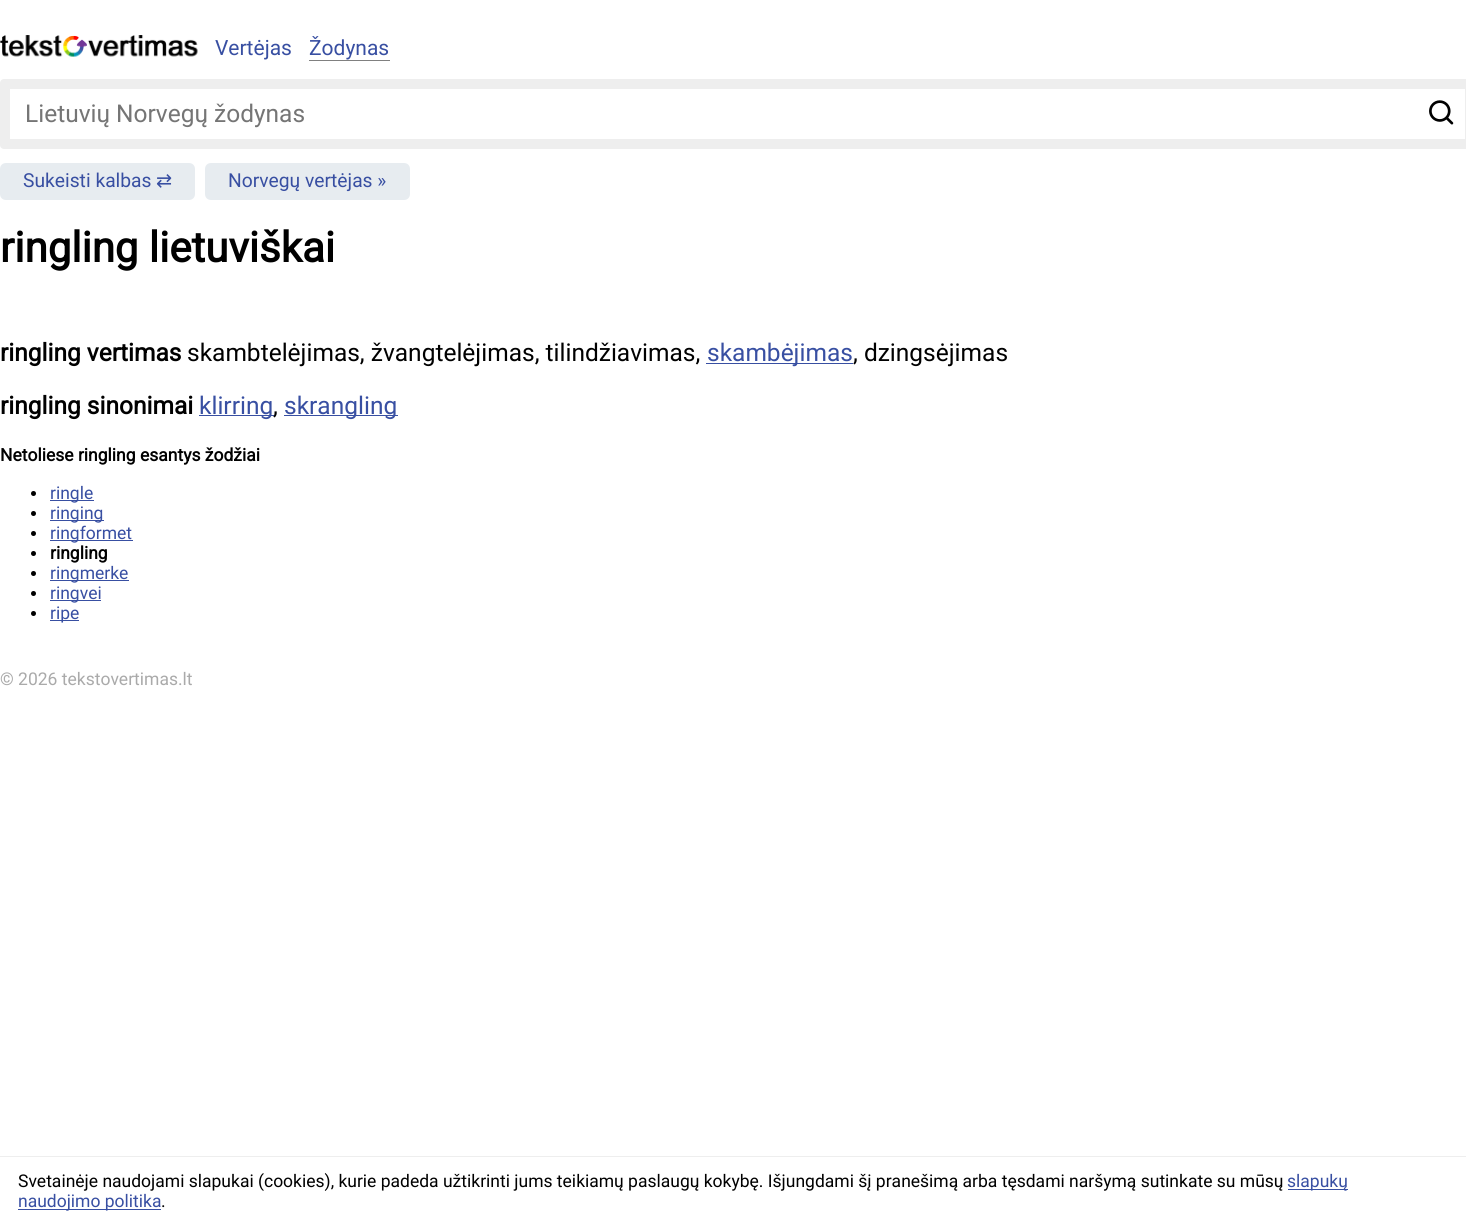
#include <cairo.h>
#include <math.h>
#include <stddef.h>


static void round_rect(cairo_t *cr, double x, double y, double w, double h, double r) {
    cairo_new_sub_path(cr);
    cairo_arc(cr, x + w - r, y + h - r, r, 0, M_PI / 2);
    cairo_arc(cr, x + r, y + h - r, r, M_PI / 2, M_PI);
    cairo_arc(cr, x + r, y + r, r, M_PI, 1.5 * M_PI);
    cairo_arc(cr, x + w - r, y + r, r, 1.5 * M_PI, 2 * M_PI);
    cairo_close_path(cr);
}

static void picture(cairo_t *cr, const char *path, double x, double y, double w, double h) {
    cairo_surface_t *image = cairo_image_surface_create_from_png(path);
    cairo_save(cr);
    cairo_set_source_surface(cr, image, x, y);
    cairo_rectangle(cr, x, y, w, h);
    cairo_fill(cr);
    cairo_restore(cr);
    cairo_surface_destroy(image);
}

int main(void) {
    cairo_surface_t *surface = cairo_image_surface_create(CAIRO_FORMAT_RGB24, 1466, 1225);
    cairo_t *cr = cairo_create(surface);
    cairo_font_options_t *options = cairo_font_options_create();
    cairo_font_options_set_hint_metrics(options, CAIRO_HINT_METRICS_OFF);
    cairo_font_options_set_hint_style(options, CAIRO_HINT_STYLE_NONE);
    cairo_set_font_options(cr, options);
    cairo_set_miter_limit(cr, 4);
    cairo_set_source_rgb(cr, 1, 1, 1);
    cairo_paint(cr);
    picture(cr, "img1.png", 0, 35, 198, 22);
    cairo_select_font_face(cr, "Roboto", CAIRO_FONT_SLANT_NORMAL, CAIRO_FONT_WEIGHT_NORMAL);
    cairo_set_font_size(cr, 21);
    cairo_set_source_rgb(cr, 0.22, 0.31, 0.635);
    cairo_move_to(cr, 215, 55);
    cairo_show_text(cr, "Vertėjas");
    cairo_set_source_rgb(cr, 0.502, 0.502, 0.502);
    cairo_rectangle(cr, 309, 60, 81, 1);
    cairo_fill(cr);
    cairo_set_source_rgb(cr, 0.22, 0.31, 0.635);
    cairo_move_to(cr, 309, 55);
    cairo_show_text(cr, "Žodynas");
    cairo_set_source_rgb(cr, 0.933, 0.933, 0.933);
    round_rect(cr, 0, 79, 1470, 70, 4);
    cairo_fill(cr);
    cairo_set_source_rgb(cr, 1, 1, 1);
    cairo_rectangle(cr, 10, 89, 1455, 50);
    cairo_fill(cr);
    cairo_set_font_size(cr, 24.5);
    cairo_set_source_rgb(cr, 0.459, 0.459, 0.459);
    cairo_move_to(cr, 25, 122);
    cairo_show_text(cr, "Lietuvių Norvegų žodynas");
    picture(cr, "img2.png", 1429, 100, 25, 25);
    cairo_set_source_rgb(cr, 0.906, 0.922, 0.941);
    cairo_new_path(cr);
    cairo_move_to(cr, 6, 163);
    cairo_line_to(cr, 151, 163);
    cairo_line_to(cr, 151, 200);
    cairo_line_to(cr, 6, 200);
    cairo_curve_to(cr, 2.5, 200, 0, 197.5, 0, 194);
    cairo_line_to(cr, 0, 169);
    cairo_curve_to(cr, 0, 165.5, 2.5, 163, 6, 163);
    cairo_close_path(cr);
    cairo_fill(cr);
    cairo_set_font_size(cr, 19.25);
    cairo_set_source_rgb(cr, 0.22, 0.31, 0.635);
    cairo_move_to(cr, 23, 187);
    cairo_show_text(cr, "Sukeisti kalbas");
    cairo_set_source_rgb(cr, 0.906, 0.922, 0.941);
    cairo_new_path(cr);
    cairo_move_to(cr, 151, 163);
    cairo_line_to(cr, 189, 163);
    cairo_curve_to(cr, 192.5, 163, 195, 165.5, 195, 169);
    cairo_line_to(cr, 195, 194);
    cairo_curve_to(cr, 195, 197.5, 192.5, 200, 189, 200);
    cairo_line_to(cr, 151, 200);
    cairo_close_path(cr);
    cairo_fill(cr);
    cairo_select_font_face(cr, "DejaVu Sans", CAIRO_FONT_SLANT_NORMAL, CAIRO_FONT_WEIGHT_NORMAL);
    cairo_set_source_rgb(cr, 0.22, 0.31, 0.635);
    cairo_move_to(cr, 156, 187);
    cairo_show_text(cr, "⇄");
    cairo_set_source_rgb(cr, 0.906, 0.922, 0.941);
    cairo_new_path(cr);
    cairo_move_to(cr, 211, 163);
    cairo_line_to(cr, 373, 163);
    cairo_line_to(cr, 373, 200);
    cairo_line_to(cr, 211, 200);
    cairo_curve_to(cr, 207.5, 200, 205, 197.5, 205, 194);
    cairo_line_to(cr, 205, 169);
    cairo_curve_to(cr, 205, 165.5, 207.5, 163, 211, 163);
    cairo_close_path(cr);
    cairo_fill(cr);
    cairo_new_path(cr);
    cairo_move_to(cr, 373, 163);
    cairo_line_to(cr, 404, 163);
    cairo_curve_to(cr, 407.5, 163, 410, 165.5, 410, 169);
    cairo_line_to(cr, 410, 194);
    cairo_curve_to(cr, 410, 197.5, 407.5, 200, 404, 200);
    cairo_line_to(cr, 373, 200);
    cairo_close_path(cr);
    cairo_fill(cr);
    cairo_select_font_face(cr, "Roboto", CAIRO_FONT_SLANT_NORMAL, CAIRO_FONT_WEIGHT_NORMAL);
    cairo_set_source_rgb(cr, 0.22, 0.31, 0.635);
    cairo_move_to(cr, 228, 187);
    cairo_show_text(cr, "Norvegų vertėjas »");
    cairo_select_font_face(cr, "Roboto", CAIRO_FONT_SLANT_NORMAL, CAIRO_FONT_WEIGHT_BOLD);
    cairo_set_font_size(cr, 42);
    cairo_set_source_rgb(cr, 0, 0, 0);
    cairo_move_to(cr, 0, 262);
    cairo_show_text(cr, "ringling lietuviškai");
    cairo_set_font_size(cr, 24.5);
    cairo_move_to(cr, 0, 361);
    cairo_show_text(cr, "ringling vertimas");
    cairo_select_font_face(cr, "Roboto", CAIRO_FONT_SLANT_NORMAL, CAIRO_FONT_WEIGHT_NORMAL);
    cairo_move_to(cr, 187, 361);
    cairo_show_text(cr, "skambtelėjimas, žvangtelėjimas, tilindžiavimas,");
    cairo_set_source_rgb(cr, 0.22, 0.31, 0.635);
    cairo_rectangle(cr, 706, 363, 147, 1);
    cairo_fill(cr);
    cairo_move_to(cr, 707, 361);
    cairo_show_text(cr, "skambėjimas");
    cairo_set_source_rgb(cr, 0, 0, 0);
    cairo_move_to(cr, 853, 361);
    cairo_show_text(cr, ", dzingsėjimas");
    cairo_select_font_face(cr, "Roboto", CAIRO_FONT_SLANT_NORMAL, CAIRO_FONT_WEIGHT_BOLD);
    cairo_move_to(cr, 0, 414);
    cairo_show_text(cr, "ringling sinonimai");
    cairo_set_source_rgb(cr, 0.22, 0.31, 0.635);
    cairo_rectangle(cr, 199, 415, 75, 1);
    cairo_fill(cr);
    cairo_select_font_face(cr, "Roboto", CAIRO_FONT_SLANT_NORMAL, CAIRO_FONT_WEIGHT_NORMAL);
    cairo_move_to(cr, 199, 414);
    cairo_show_text(cr, "klirring");
    cairo_set_source_rgb(cr, 0, 0, 0);
    cairo_move_to(cr, 273, 414);
    cairo_show_text(cr, ",");
    cairo_set_source_rgb(cr, 0.22, 0.31, 0.635);
    cairo_rectangle(cr, 284, 415, 114, 1);
    cairo_fill(cr);
    cairo_move_to(cr, 284, 414);
    cairo_show_text(cr, "skrangling");
    cairo_select_font_face(cr, "Roboto", CAIRO_FONT_SLANT_NORMAL, CAIRO_FONT_WEIGHT_BOLD);
    cairo_set_font_size(cr, 17.5);
    cairo_set_source_rgb(cr, 0, 0, 0);
    cairo_move_to(cr, 0, 461);
    cairo_show_text(cr, "Netoliese ringling esantys žodžiai");
    cairo_new_path(cr);
    cairo_arc(cr, 33.5, 493.5, 2.5, 0, 2 * M_PI);
    cairo_fill(cr);
    cairo_set_source_rgb(cr, 0.22, 0.31, 0.635);
    cairo_rectangle(cr, 50, 500, 44, 1);
    cairo_fill(cr);
    cairo_select_font_face(cr, "Roboto", CAIRO_FONT_SLANT_NORMAL, CAIRO_FONT_WEIGHT_NORMAL);
    cairo_move_to(cr, 50, 499);
    cairo_show_text(cr, "ringle");
    cairo_set_source_rgb(cr, 0, 0, 0);
    cairo_new_path(cr);
    cairo_arc(cr, 33.5, 513.5, 2.5, 0, 2 * M_PI);
    cairo_fill(cr);
    cairo_set_source_rgb(cr, 0.22, 0.31, 0.635);
    cairo_rectangle(cr, 50, 520, 54, 1);
    cairo_fill(cr);
    cairo_move_to(cr, 50, 519);
    cairo_show_text(cr, "ringing");
    cairo_set_source_rgb(cr, 0, 0, 0);
    cairo_new_path(cr);
    cairo_arc(cr, 33.5, 533.5, 2.5, 0, 2 * M_PI);
    cairo_fill(cr);
    cairo_set_source_rgb(cr, 0.22, 0.31, 0.635);
    cairo_rectangle(cr, 50, 540, 83, 1);
    cairo_fill(cr);
    cairo_move_to(cr, 50, 539);
    cairo_show_text(cr, "ringformet");
    cairo_set_source_rgb(cr, 0, 0, 0);
    cairo_new_path(cr);
    cairo_arc(cr, 33.5, 553.5, 2.5, 0, 2 * M_PI);
    cairo_fill(cr);
    cairo_select_font_face(cr, "Roboto", CAIRO_FONT_SLANT_NORMAL, CAIRO_FONT_WEIGHT_BOLD);
    cairo_move_to(cr, 50, 559);
    cairo_show_text(cr, "ringling");
    cairo_new_path(cr);
    cairo_arc(cr, 33.5, 573.5, 2.5, 0, 2 * M_PI);
    cairo_fill(cr);
    cairo_set_source_rgb(cr, 0.22, 0.31, 0.635);
    cairo_rectangle(cr, 50, 580, 79, 1);
    cairo_fill(cr);
    cairo_select_font_face(cr, "Roboto", CAIRO_FONT_SLANT_NORMAL, CAIRO_FONT_WEIGHT_NORMAL);
    cairo_move_to(cr, 50, 579);
    cairo_show_text(cr, "ringmerke");
    cairo_set_source_rgb(cr, 0, 0, 0);
    cairo_new_path(cr);
    cairo_arc(cr, 33.5, 593.5, 2.5, 0, 2 * M_PI);
    cairo_fill(cr);
    cairo_set_source_rgb(cr, 0.22, 0.31, 0.635);
    cairo_rectangle(cr, 50, 600, 51, 1);
    cairo_fill(cr);
    cairo_move_to(cr, 50, 599);
    cairo_show_text(cr, "ringvei");
    cairo_set_source_rgb(cr, 0, 0, 0);
    cairo_new_path(cr);
    cairo_arc(cr, 33.5, 613.5, 2.5, 0, 2 * M_PI);
    cairo_fill(cr);
    cairo_set_source_rgb(cr, 0.22, 0.31, 0.635);
    cairo_rectangle(cr, 50, 620, 29, 1);
    cairo_fill(cr);
    cairo_move_to(cr, 50, 619);
    cairo_show_text(cr, "ripe");
    cairo_set_source_rgb(cr, 0.667, 0.667, 0.667);
    cairo_move_to(cr, 0, 685);
    cairo_show_text(cr, "© 2026 tekstovertimas.lt");
    cairo_set_source_rgb(cr, 0.933, 0.933, 0.933);
    cairo_rectangle(cr, 0, 1156, 1466, 1);
    cairo_fill(cr);
    cairo_set_source_rgb(cr, 0, 0, 0);
    cairo_move_to(cr, 18, 1187);
    cairo_show_text(cr, "Svetainėje naudojami slapukai (cookies), kurie padeda užtikrinti jums teikiamų paslaugų kokybę. Išjungdami šį pranešimą arba tęsdami naršymą sutinkate su mūsų");
    cairo_set_source_rgb(cr, 0.22, 0.31, 0.635);
    cairo_rectangle(cr, 1288, 1189, 60, 1);
    cairo_fill(cr);
    cairo_move_to(cr, 1287, 1187);
    cairo_show_text(cr, "slapukų");
    cairo_rectangle(cr, 18, 1209, 143, 1);
    cairo_fill(cr);
    cairo_move_to(cr, 18, 1207);
    cairo_show_text(cr, "naudojimo politika");
    cairo_set_source_rgb(cr, 0, 0, 0);
    cairo_move_to(cr, 161, 1207);
    cairo_show_text(cr, ".");
    cairo_surface_write_to_png(surface, "page.png");
    cairo_font_options_destroy(options);
    cairo_destroy(cr);
    cairo_surface_destroy(surface);
    return 0;
}
